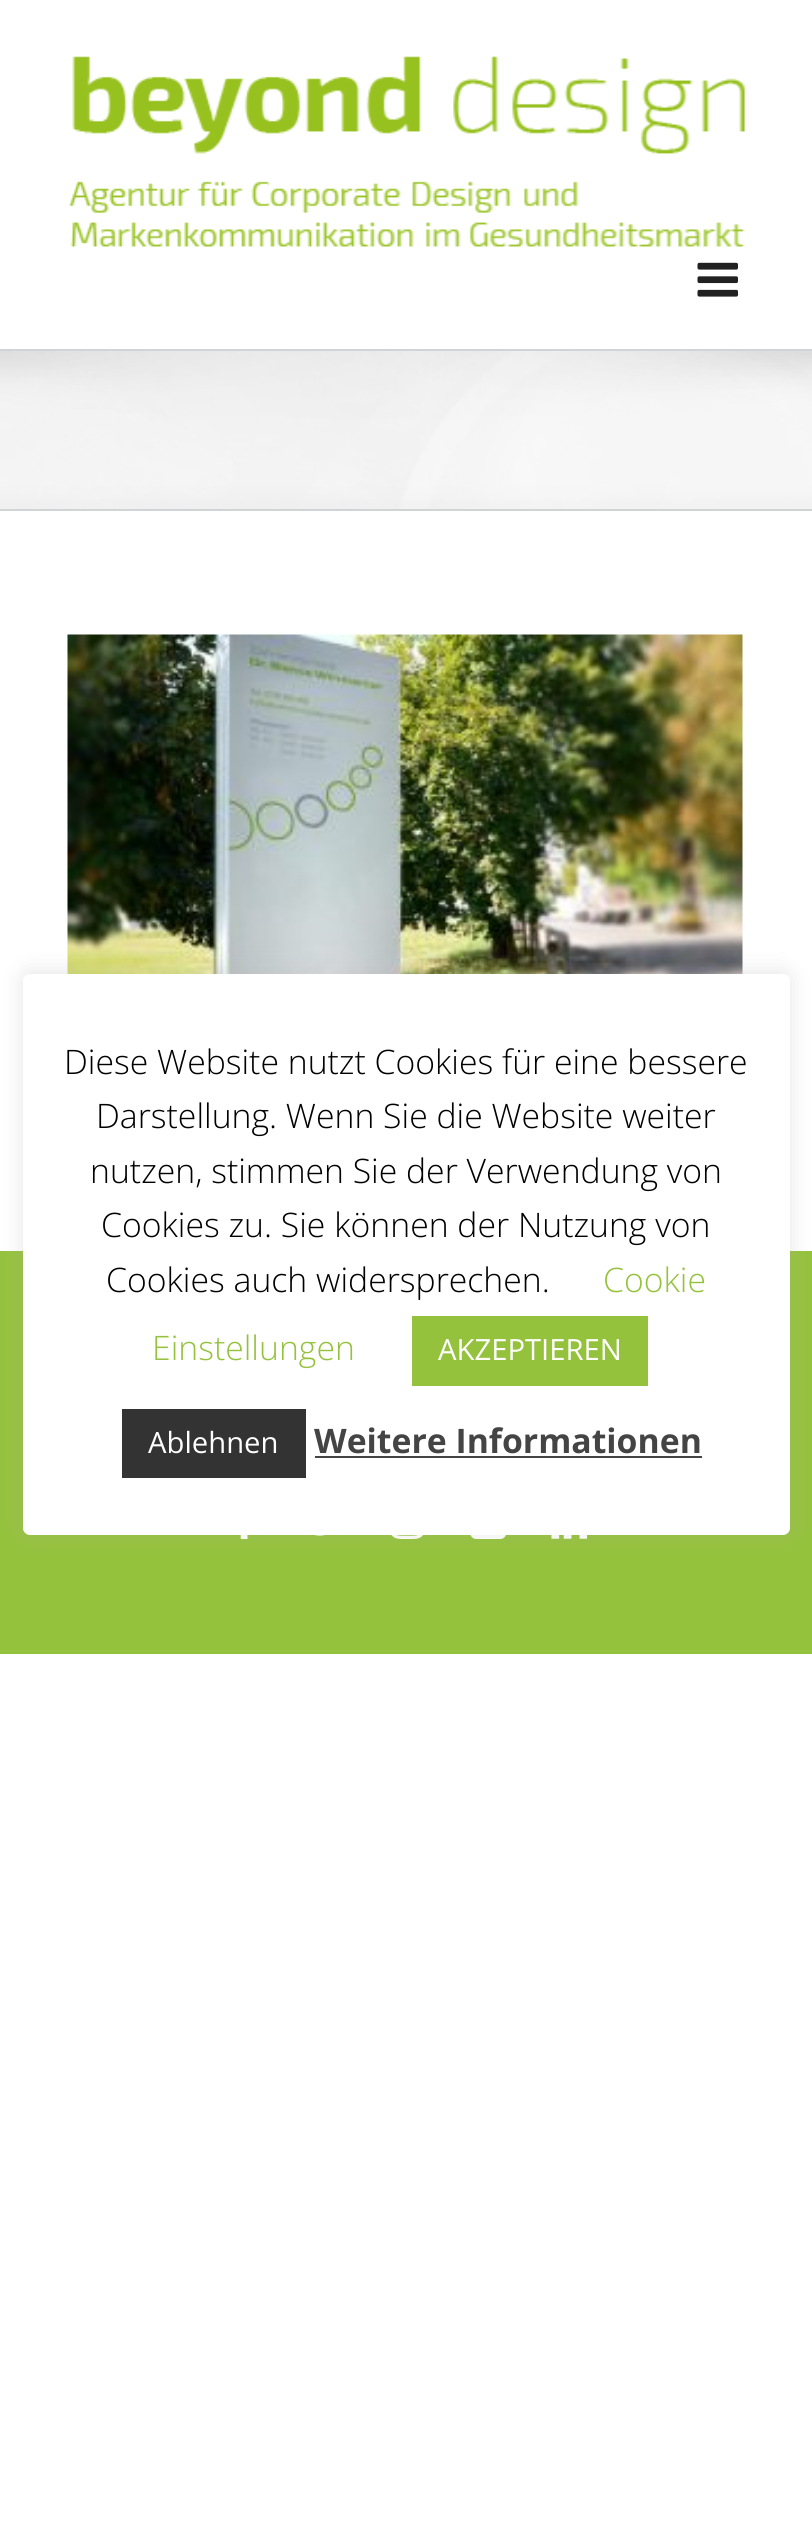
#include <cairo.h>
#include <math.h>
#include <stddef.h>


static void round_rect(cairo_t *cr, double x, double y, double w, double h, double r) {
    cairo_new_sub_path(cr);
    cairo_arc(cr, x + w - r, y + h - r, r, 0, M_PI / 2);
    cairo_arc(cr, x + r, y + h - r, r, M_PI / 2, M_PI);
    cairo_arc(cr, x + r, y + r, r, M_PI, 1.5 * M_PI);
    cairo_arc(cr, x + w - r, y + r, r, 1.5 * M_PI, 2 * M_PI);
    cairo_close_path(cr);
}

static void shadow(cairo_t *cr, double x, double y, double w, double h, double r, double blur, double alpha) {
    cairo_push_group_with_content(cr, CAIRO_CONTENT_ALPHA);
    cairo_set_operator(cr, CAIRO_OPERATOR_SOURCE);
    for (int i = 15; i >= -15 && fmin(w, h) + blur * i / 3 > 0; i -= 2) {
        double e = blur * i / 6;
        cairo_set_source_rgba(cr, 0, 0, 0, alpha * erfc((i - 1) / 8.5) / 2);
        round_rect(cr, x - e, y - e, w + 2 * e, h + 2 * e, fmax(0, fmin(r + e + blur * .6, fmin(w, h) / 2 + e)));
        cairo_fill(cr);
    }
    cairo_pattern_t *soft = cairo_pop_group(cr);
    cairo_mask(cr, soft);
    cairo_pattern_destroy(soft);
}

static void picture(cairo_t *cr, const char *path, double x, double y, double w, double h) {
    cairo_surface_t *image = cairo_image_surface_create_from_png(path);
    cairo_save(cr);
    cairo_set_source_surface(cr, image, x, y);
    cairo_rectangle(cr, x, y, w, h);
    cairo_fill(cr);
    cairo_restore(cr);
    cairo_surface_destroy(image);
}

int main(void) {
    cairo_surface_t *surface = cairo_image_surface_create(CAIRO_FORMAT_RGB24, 812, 2530);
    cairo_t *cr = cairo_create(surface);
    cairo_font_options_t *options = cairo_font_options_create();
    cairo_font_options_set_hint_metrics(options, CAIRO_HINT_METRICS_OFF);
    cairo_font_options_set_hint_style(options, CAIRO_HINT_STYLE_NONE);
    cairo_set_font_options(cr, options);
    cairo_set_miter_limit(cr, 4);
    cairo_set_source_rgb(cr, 1, 1, 1);
    cairo_paint(cr);
    picture(cr, "img1.png", 69, 56, 676, 191);
    picture(cr, "img2.png", 697, 262, 41, 35);
    cairo_set_source_rgb(cr, 0.965, 0.965, 0.965);
    cairo_rectangle(cr, 0, 351, 812, 158);
    cairo_fill(cr);
    picture(cr, "img3.png", 0, 351, 812, 158);
    cairo_set_source_rgb(cr, 0.824, 0.827, 0.831);
    cairo_rectangle(cr, 0, 349, 812, 2);
    cairo_fill(cr);
    cairo_rectangle(cr, 0, 509, 812, 2);
    cairo_fill(cr);
    picture(cr, "img4.png", 67, 634, 676, 340);
    cairo_set_source_rgb(cr, 0.584, 0.761, 0.239);
    cairo_rectangle(cr, 0, 1251, 812, 403);
    cairo_fill(cr);
    picture(cr, "img5.png", 240, 1535, 8, 4);
    picture(cr, "img6.png", 315, 1535, 10, 1);
    picture(cr, "img7.png", 391, 1535, 32, 4);
    picture(cr, "img8.png", 470, 1535, 36, 4);
    picture(cr, "img9.png", 551, 1535, 36, 4);
    cairo_set_source_rgb(cr, 0.675, 0.671, 0.671);
    shadow(cr, 23, 972, 767, 560, 7, 11, 0.3);
    cairo_set_source_rgb(cr, 1, 1, 1);
    round_rect(cr, 23, 974, 767, 561, 7);
    cairo_fill(cr);
    cairo_select_font_face(cr, "Open Sans Light", CAIRO_FONT_SLANT_NORMAL, CAIRO_FONT_WEIGHT_NORMAL);
    cairo_set_font_size(cr, 33.75);
    cairo_set_source_rgb(cr, 0, 0, 0);
    cairo_move_to(cr, 64, 1074);
    cairo_show_text(cr, "Diese Website nutzt Cookies für eine bessere");
    cairo_move_to(cr, 96, 1128);
    cairo_show_text(cr, "Darstellung. Wenn Sie die Website weiter");
    cairo_move_to(cr, 90, 1183);
    cairo_show_text(cr, "nutzen, stimmen Sie der Verwendung von");
    cairo_move_to(cr, 101, 1237);
    cairo_show_text(cr, "Cookies zu. Sie können der Nutzung von");
    cairo_move_to(cr, 106, 1292);
    cairo_show_text(cr, "Cookies auch widersprechen.");
    cairo_set_source_rgb(cr, 0.584, 0.761, 0.239);
    cairo_move_to(cr, 603, 1292);
    cairo_show_text(cr, "Cookie");
    cairo_move_to(cr, 152, 1360);
    cairo_show_text(cr, "Einstellungen");
    cairo_rectangle(cr, 412, 1316, 236, 70);
    cairo_fill(cr);
    cairo_select_font_face(cr, "Open Sans", CAIRO_FONT_SLANT_NORMAL, CAIRO_FONT_WEIGHT_NORMAL);
    cairo_set_font_size(cr, 29.25);
    cairo_set_source_rgb(cr, 1, 1, 1);
    cairo_move_to(cr, 438, 1360);
    cairo_show_text(cr, "AKZEPTIEREN");
    cairo_set_source_rgb(cr, 0.2, 0.2, 0.2);
    cairo_rectangle(cr, 122, 1409, 184, 69);
    cairo_fill(cr);
    cairo_set_source_rgb(cr, 1, 1, 1);
    cairo_move_to(cr, 148, 1453);
    cairo_show_text(cr, "Ablehnen");
    cairo_select_font_face(cr, "Open Sans", CAIRO_FONT_SLANT_NORMAL, CAIRO_FONT_WEIGHT_BOLD);
    cairo_set_font_size(cr, 33.75);
    cairo_set_source_rgb(cr, 0.267, 0.267, 0.267);
    cairo_move_to(cr, 314, 1453);
    cairo_show_text(cr, "Weitere Informationen");
    cairo_rectangle(cr, 315, 1456, 387, 2);
    cairo_fill(cr);
    cairo_surface_write_to_png(surface, "page.png");
    cairo_font_options_destroy(options);
    cairo_destroy(cr);
    cairo_surface_destroy(surface);
    return 0;
}
